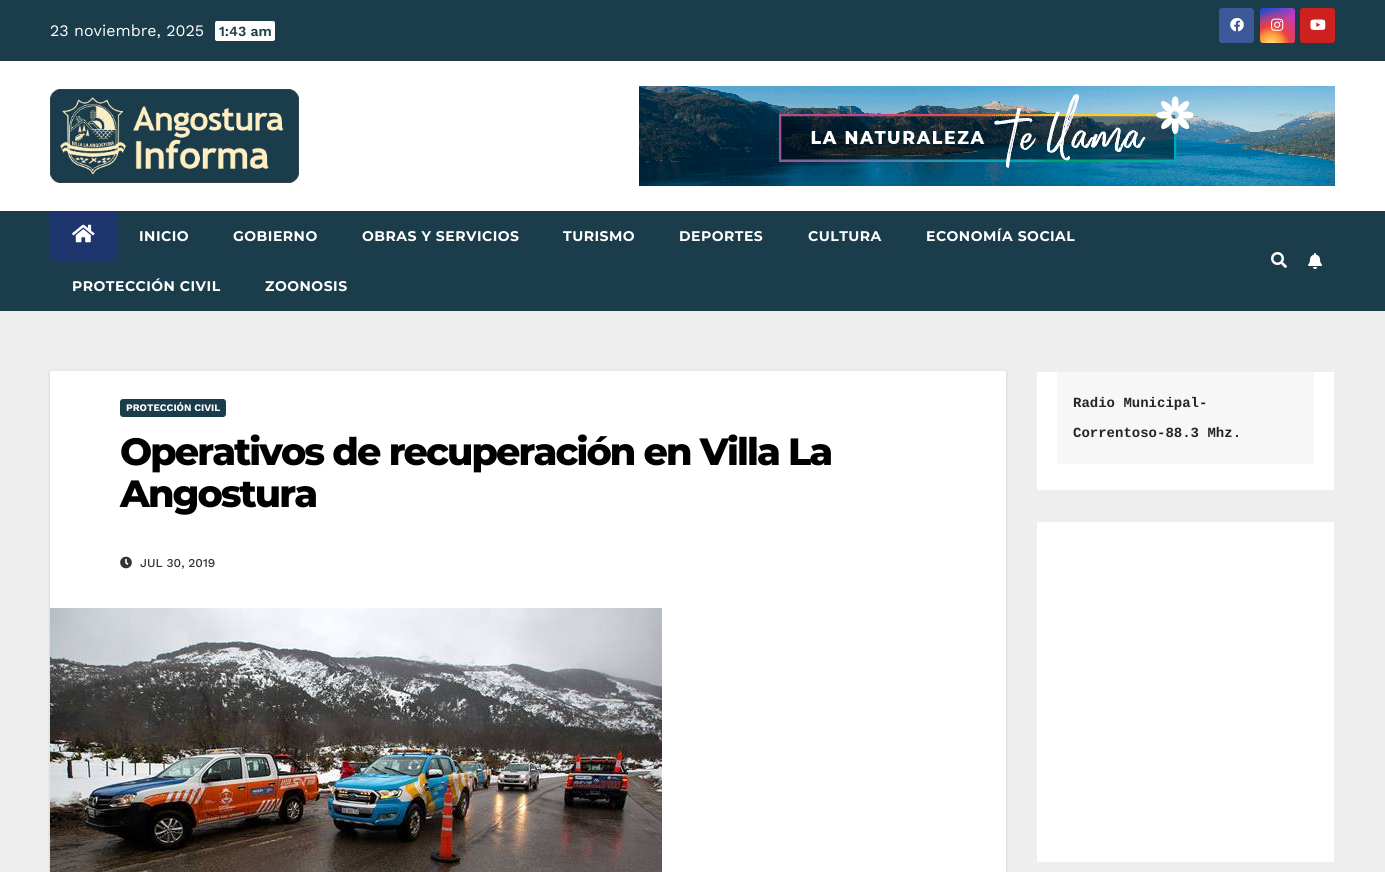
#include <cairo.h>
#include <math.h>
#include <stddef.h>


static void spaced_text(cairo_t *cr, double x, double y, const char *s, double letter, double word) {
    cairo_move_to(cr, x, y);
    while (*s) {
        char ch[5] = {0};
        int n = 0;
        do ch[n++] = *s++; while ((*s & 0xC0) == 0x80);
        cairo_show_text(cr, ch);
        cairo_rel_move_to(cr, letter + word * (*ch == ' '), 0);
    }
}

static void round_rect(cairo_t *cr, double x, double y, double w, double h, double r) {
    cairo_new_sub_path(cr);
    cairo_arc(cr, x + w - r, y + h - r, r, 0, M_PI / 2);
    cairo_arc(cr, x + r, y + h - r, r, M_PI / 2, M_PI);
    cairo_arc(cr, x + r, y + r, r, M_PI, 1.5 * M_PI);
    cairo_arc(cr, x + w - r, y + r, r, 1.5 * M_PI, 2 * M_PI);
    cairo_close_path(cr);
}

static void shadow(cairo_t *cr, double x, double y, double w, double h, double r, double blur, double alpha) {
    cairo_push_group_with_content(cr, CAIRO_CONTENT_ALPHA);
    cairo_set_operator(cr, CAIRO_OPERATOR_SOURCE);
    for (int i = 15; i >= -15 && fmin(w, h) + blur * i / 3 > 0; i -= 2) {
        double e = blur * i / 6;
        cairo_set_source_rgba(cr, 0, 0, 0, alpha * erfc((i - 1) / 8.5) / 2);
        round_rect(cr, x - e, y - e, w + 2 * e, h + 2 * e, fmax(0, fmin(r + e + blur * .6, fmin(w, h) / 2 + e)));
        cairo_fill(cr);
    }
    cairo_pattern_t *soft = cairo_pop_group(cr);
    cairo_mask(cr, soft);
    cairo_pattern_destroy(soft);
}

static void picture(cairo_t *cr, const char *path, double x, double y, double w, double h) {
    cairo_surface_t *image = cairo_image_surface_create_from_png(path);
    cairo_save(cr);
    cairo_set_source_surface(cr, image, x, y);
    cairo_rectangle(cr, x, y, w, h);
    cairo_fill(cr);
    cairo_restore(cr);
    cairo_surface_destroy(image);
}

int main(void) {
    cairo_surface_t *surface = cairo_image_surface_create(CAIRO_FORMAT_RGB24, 1385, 872);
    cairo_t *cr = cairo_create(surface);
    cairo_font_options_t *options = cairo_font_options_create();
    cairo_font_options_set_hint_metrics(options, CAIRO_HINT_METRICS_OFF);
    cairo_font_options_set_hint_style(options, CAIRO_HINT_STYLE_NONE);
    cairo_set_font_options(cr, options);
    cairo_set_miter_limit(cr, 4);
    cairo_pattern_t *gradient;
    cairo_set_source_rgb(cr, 0.933, 0.933, 0.933);
    cairo_paint(cr);
    cairo_set_source_rgb(cr, 0.102, 0.235, 0.294);
    cairo_rectangle(cr, 0, 0, 1385, 61);
    cairo_fill(cr);
    cairo_select_font_face(cr, "Work Sans", CAIRO_FONT_SLANT_NORMAL, CAIRO_FONT_WEIGHT_NORMAL);
    cairo_set_font_size(cr, 16);
    cairo_set_source_rgb(cr, 1, 1, 1);
    cairo_move_to(cr, 50, 36);
    cairo_show_text(cr, "23 noviembre, 2025");
    round_rect(cr, 215, 21, 60, 20, 2);
    cairo_fill(cr);
    cairo_select_font_face(cr, "Work Sans SemiBold", CAIRO_FONT_SLANT_NORMAL, CAIRO_FONT_WEIGHT_NORMAL);
    cairo_set_font_size(cr, 14);
    cairo_set_source_rgb(cr, 0.102, 0.235, 0.294);
    cairo_move_to(cr, 219, 36);
    cairo_show_text(cr, "1:43 am");
    cairo_set_source_rgb(cr, 0.231, 0.349, 0.596);
    round_rect(cr, 1219, 8, 35, 35, 3);
    cairo_fill(cr);
    picture(cr, "img1.png", 1230, 18, 14, 14);
    gradient = cairo_pattern_create_linear(1260, 8, 1295, 43);
    cairo_pattern_add_color_stop_rgba(gradient, 0.12, 0.137, 0.294, 0.843, 1);
    cairo_pattern_add_color_stop_rgba(gradient, 0.58, 0.765, 0.235, 0.745, 1);
    cairo_set_source(cr, gradient);
    cairo_pattern_destroy(gradient);
    round_rect(cr, 1260, 8, 35, 35, 3);
    cairo_fill(cr);
    gradient = cairo_pattern_create_radial(1271, 45, 0, 1271, 45, 44);
    cairo_pattern_add_color_stop_rgba(gradient, 0, 1, 0.882, 0.49, 1);
    cairo_pattern_add_color_stop_rgba(gradient, 0.1, 1, 0.804, 0.412, 1);
    cairo_pattern_add_color_stop_rgba(gradient, 0.28, 0.98, 0.569, 0.216, 1);
    cairo_pattern_add_color_stop_rgba(gradient, 0.42, 0.922, 0.255, 0.255, 1);
    cairo_pattern_add_color_stop_rgba(gradient, 0.82, 0.922, 0.255, 0.255, 0);
    cairo_set_source(cr, gradient);
    cairo_pattern_destroy(gradient);
    round_rect(cr, 1260, 8, 35, 35, 3);
    cairo_fill(cr);
    picture(cr, "img2.png", 1271, 18, 13, 13);
    cairo_set_source_rgb(cr, 0.804, 0.125, 0.122);
    round_rect(cr, 1300, 8, 35, 35, 3);
    cairo_fill(cr);
    picture(cr, "img3.png", 1310, 19, 16, 11);
    cairo_set_source_rgb(cr, 1, 1, 1);
    cairo_rectangle(cr, 0, 61, 1385, 150);
    cairo_fill(cr);
    picture(cr, "img4.png", 50, 89, 249, 94);
    picture(cr, "img5.png", 639, 86, 696, 100);
    cairo_set_source_rgb(cr, 0.102, 0.235, 0.294);
    cairo_rectangle(cr, 0, 211, 1385, 100);
    cairo_fill(cr);
    cairo_set_source_rgb(cr, 0.118, 0.204, 0.424);
    cairo_rectangle(cr, 50, 211, 67, 50);
    cairo_fill(cr);
    picture(cr, "img6.png", 72, 224, 23, 19);
    cairo_select_font_face(cr, "Montserrat", CAIRO_FONT_SLANT_NORMAL, CAIRO_FONT_WEIGHT_BOLD);
    cairo_set_source_rgb(cr, 1, 1, 1);
    spaced_text(cr, 139, 241, "INICIO", 0.5, 0);
    spaced_text(cr, 233, 241, "GOBIERNO", 0.5, 0);
    spaced_text(cr, 362, 241, "OBRAS Y SERVICIOS", 0.5, 0);
    spaced_text(cr, 563, 241, "TURISMO", 0.5, 0);
    spaced_text(cr, 679, 241, "DEPORTES", 0.5, 0);
    spaced_text(cr, 808, 241, "CULTURA", 0.5, 0);
    spaced_text(cr, 926, 241, "ECONOMÍA SOCIAL", 0.5, 0);
    spaced_text(cr, 72, 291, "PROTECCIÓN CIVIL", 0.5, 0);
    spaced_text(cr, 265, 291, "ZOONOSIS", 0.5, 0);
    picture(cr, "img7.png", 1271, 252, 16, 16);
    picture(cr, "img8.png", 1308, 253, 14, 16);
    cairo_set_source_rgb(cr, 0, 0, 0);
    shadow(cr, 50, 372, 956, 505, 0, 1.5, 0.15);
    cairo_set_source_rgb(cr, 1, 1, 1);
    cairo_rectangle(cr, 50, 371, 956, 501);
    cairo_fill(cr);
    cairo_set_source_rgb(cr, 0.102, 0.235, 0.294);
    round_rect(cr, 120, 399, 106, 18, 3);
    cairo_fill(cr);
    cairo_select_font_face(cr, "Work Sans", CAIRO_FONT_SLANT_NORMAL, CAIRO_FONT_WEIGHT_BOLD);
    cairo_set_font_size(cr, 10);
    cairo_set_source_rgb(cr, 1, 1, 1);
    cairo_move_to(cr, 126, 411);
    cairo_show_text(cr, "PROTECCIÓN CIVIL");
    cairo_select_font_face(cr, "Montserrat ExtraBold", CAIRO_FONT_SLANT_NORMAL, CAIRO_FONT_WEIGHT_NORMAL);
    cairo_set_font_size(cr, 38);
    cairo_set_source_rgb(cr, 0, 0, 0);
    spaced_text(cr, 120, 465, "Operativos de recuperación en Villa La", -1.9, 0);
    spaced_text(cr, 120, 507, "Angostura", -1.9, 0);
    picture(cr, "img9.png", 120, 556, 12, 13);
    cairo_select_font_face(cr, "Work Sans Medium", CAIRO_FONT_SLANT_NORMAL, CAIRO_FONT_WEIGHT_NORMAL);
    cairo_set_font_size(cr, 12);
    cairo_set_source_rgb(cr, 0.2, 0.2, 0.2);
    cairo_move_to(cr, 140, 567);
    cairo_show_text(cr, "JUL 30, 2019");
    picture(cr, "img10.png", 50, 608, 612, 264);
    cairo_set_source_rgb(cr, 1, 1, 1);
    cairo_rectangle(cr, 1037, 372, 297, 118);
    cairo_fill(cr);
    cairo_set_source_rgb(cr, 0.965, 0.965, 0.965);
    cairo_rectangle(cr, 1057, 372, 257, 92);
    cairo_fill(cr);
    cairo_select_font_face(cr, "Liberation Mono", CAIRO_FONT_SLANT_NORMAL, CAIRO_FONT_WEIGHT_BOLD);
    cairo_set_font_size(cr, 14);
    cairo_set_source_rgb(cr, 0.129, 0.145, 0.161);
    cairo_move_to(cr, 1073, 407);
    cairo_show_text(cr, "Radio Municipal-");
    cairo_move_to(cr, 1073, 437);
    cairo_show_text(cr, "Correntoso-88.3 Mhz.");
    cairo_set_source_rgb(cr, 1, 1, 1);
    cairo_rectangle(cr, 1037, 522, 297, 340);
    cairo_fill(cr);
    cairo_surface_write_to_png(surface, "page.png");
    cairo_font_options_destroy(options);
    cairo_destroy(cr);
    cairo_surface_destroy(surface);
    return 0;
}
